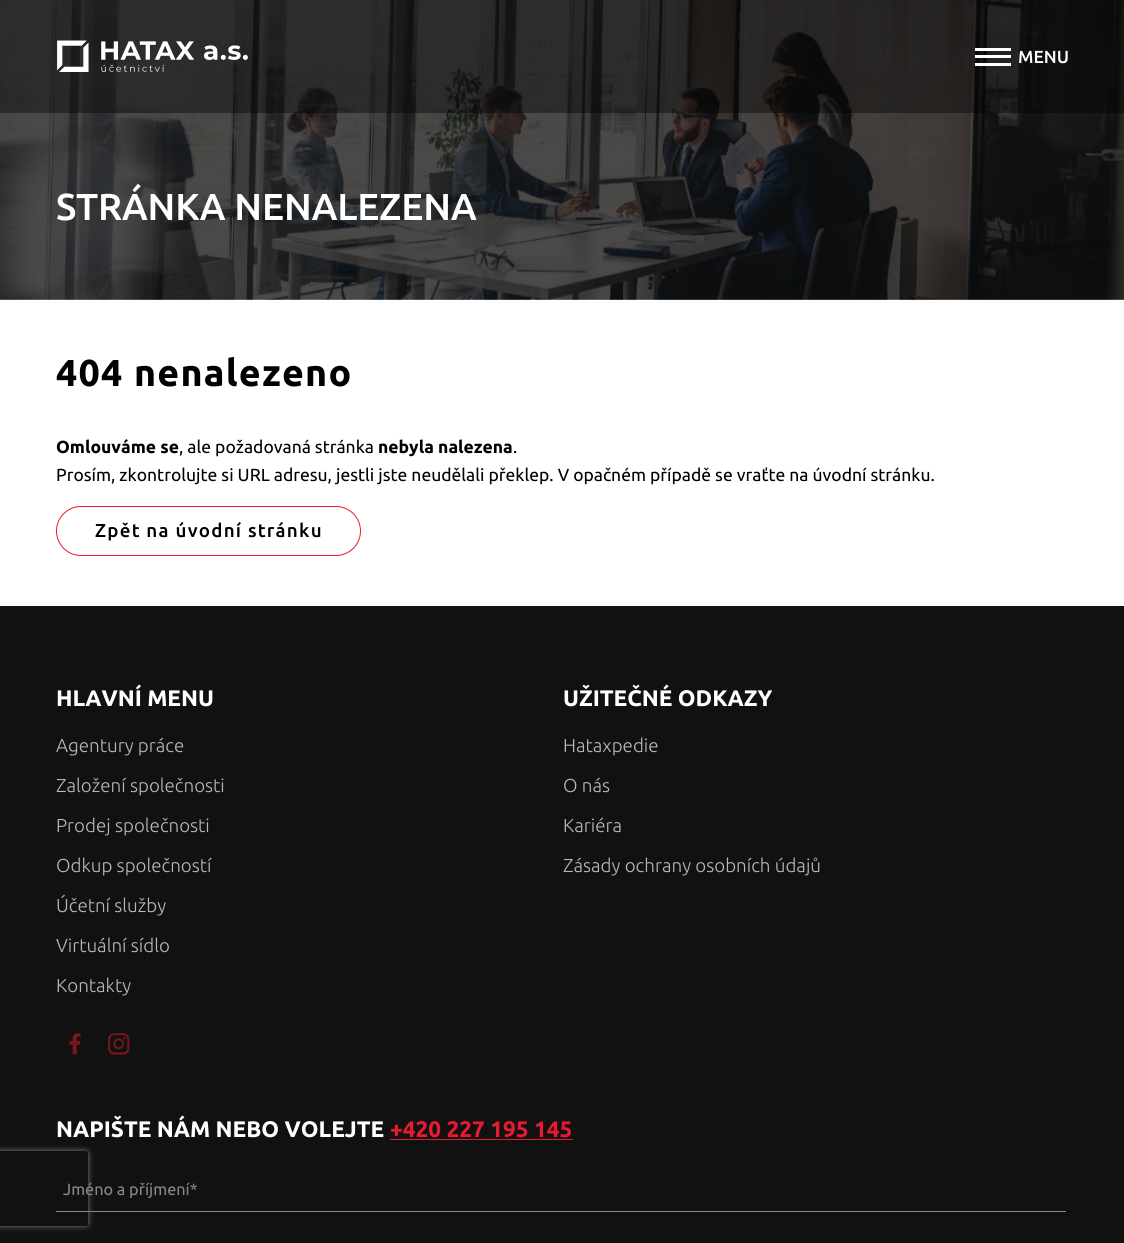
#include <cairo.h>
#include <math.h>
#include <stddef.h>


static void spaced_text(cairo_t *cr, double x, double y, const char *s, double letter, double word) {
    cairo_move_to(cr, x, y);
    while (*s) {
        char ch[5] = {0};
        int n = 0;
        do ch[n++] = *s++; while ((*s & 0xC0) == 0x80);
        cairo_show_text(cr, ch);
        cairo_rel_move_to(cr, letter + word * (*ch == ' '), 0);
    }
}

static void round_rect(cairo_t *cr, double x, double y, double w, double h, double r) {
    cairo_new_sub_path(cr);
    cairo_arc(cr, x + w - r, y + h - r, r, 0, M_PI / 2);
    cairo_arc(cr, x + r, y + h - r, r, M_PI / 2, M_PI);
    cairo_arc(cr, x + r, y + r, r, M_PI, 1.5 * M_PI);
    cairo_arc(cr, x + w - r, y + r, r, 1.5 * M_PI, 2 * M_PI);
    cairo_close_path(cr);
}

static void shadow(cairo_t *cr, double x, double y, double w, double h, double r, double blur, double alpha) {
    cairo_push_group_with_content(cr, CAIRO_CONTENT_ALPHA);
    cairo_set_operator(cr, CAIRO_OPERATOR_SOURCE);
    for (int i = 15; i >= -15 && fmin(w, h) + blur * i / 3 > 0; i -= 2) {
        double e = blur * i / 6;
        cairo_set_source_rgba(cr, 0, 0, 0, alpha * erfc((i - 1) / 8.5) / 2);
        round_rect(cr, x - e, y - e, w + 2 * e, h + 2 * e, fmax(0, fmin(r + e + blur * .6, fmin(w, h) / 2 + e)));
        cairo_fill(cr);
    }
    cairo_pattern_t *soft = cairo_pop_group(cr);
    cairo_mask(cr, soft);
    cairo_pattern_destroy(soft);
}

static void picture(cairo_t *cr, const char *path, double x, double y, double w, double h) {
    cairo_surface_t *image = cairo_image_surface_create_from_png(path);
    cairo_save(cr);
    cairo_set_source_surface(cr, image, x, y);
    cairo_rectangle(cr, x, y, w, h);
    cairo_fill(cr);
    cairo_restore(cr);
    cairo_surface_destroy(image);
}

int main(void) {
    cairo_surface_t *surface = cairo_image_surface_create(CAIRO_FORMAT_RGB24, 1124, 1243);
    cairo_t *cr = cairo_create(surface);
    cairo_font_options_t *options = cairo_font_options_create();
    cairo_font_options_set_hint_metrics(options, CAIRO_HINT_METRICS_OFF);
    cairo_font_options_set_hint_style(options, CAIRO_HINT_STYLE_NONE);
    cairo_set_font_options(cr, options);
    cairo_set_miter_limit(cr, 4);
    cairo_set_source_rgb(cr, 1, 1, 1);
    cairo_paint(cr);
    picture(cr, "img2.png", 0, 0, 1124, 300);
    cairo_set_source_rgba(cr, 0, 0, 0, 0.4);
    cairo_rectangle(cr, 0, 0, 1124, 113);
    cairo_fill(cr);
    picture(cr, "img1.png", 57, 40, 191, 32);
    cairo_set_source_rgb(cr, 1, 1, 1);
    cairo_rectangle(cr, 975, 55, 36, 3);
    cairo_fill(cr);
    cairo_rectangle(cr, 975, 48, 36, 3);
    cairo_fill(cr);
    cairo_rectangle(cr, 975, 63, 36, 3);
    cairo_fill(cr);
    cairo_select_font_face(cr, "Ubuntu Medium", CAIRO_FONT_SLANT_NORMAL, CAIRO_FONT_WEIGHT_NORMAL);
    cairo_set_font_size(cr, 17.5);
    cairo_move_to(cr, 1018, 63);
    cairo_show_text(cr, "MENU");
    cairo_set_font_size(cr, 37.5);
    cairo_move_to(cr, 56, 220);
    cairo_show_text(cr, "STRÁNKA NENALEZENA");
    cairo_select_font_face(cr, "Ubuntu", CAIRO_FONT_SLANT_NORMAL, CAIRO_FONT_WEIGHT_BOLD);
    cairo_set_source_rgb(cr, 0, 0, 0);
    spaced_text(cr, 56, 386, "404 nenalezeno", 1.25, 0);
    cairo_set_font_size(cr, 17.5);
    cairo_move_to(cr, 56, 453);
    cairo_show_text(cr, "Omlouváme se");
    cairo_select_font_face(cr, "Ubuntu", CAIRO_FONT_SLANT_NORMAL, CAIRO_FONT_WEIGHT_NORMAL);
    cairo_move_to(cr, 179, 453);
    cairo_show_text(cr, ", ale požadovaná stránka");
    cairo_select_font_face(cr, "Ubuntu", CAIRO_FONT_SLANT_NORMAL, CAIRO_FONT_WEIGHT_BOLD);
    cairo_move_to(cr, 378, 453);
    cairo_show_text(cr, "nebyla nalezena");
    cairo_select_font_face(cr, "Ubuntu", CAIRO_FONT_SLANT_NORMAL, CAIRO_FONT_WEIGHT_NORMAL);
    cairo_move_to(cr, 513, 453);
    cairo_show_text(cr, ".");
    cairo_move_to(cr, 56, 481);
    cairo_show_text(cr, "Prosím, zkontrolujte si URL adresu, jestli jste neudělali překlep. V opačném případě se vraťte na úvodní stránku.");
    round_rect(cr, 56.5, 506.5, 304, 49, 24.5);
    cairo_set_source_rgb(cr, 0.902, 0.102, 0.188);
    cairo_set_line_width(cr, 1);
    cairo_stroke(cr);
    cairo_select_font_face(cr, "Ubuntu Medium", CAIRO_FONT_SLANT_NORMAL, CAIRO_FONT_WEIGHT_NORMAL);
    cairo_set_font_size(cr, 18.75);
    cairo_set_source_rgb(cr, 0, 0, 0);
    spaced_text(cr, 95, 537, "Zpět na úvodní stránku", 1.25, 0);
    cairo_set_source_rgb(cr, 0.067, 0.067, 0.067);
    cairo_rectangle(cr, 0, 606, 1124, 637);
    cairo_fill(cr);
    cairo_select_font_face(cr, "Ubuntu", CAIRO_FONT_SLANT_NORMAL, CAIRO_FONT_WEIGHT_BOLD);
    cairo_set_font_size(cr, 22.5);
    cairo_set_source_rgb(cr, 1, 1, 1);
    cairo_move_to(cr, 56, 706);
    cairo_show_text(cr, "HLAVNÍ MENU");
    cairo_select_font_face(cr, "Ubuntu Light", CAIRO_FONT_SLANT_NORMAL, CAIRO_FONT_WEIGHT_NORMAL);
    cairo_set_font_size(cr, 18.75);
    cairo_set_source_rgb(cr, 0.722, 0.722, 0.722);
    cairo_move_to(cr, 56, 752);
    cairo_show_text(cr, "Agentury práce");
    cairo_move_to(cr, 56, 792);
    cairo_show_text(cr, "Založení společnosti");
    cairo_move_to(cr, 56, 832);
    cairo_show_text(cr, "Prodej společnosti");
    cairo_move_to(cr, 56, 872);
    cairo_show_text(cr, "Odkup společností");
    cairo_move_to(cr, 56, 912);
    cairo_show_text(cr, "Účetní služby");
    cairo_move_to(cr, 56, 952);
    cairo_show_text(cr, "Virtuální sídlo");
    cairo_move_to(cr, 56, 992);
    cairo_show_text(cr, "Kontakty");
    picture(cr, "img3.png", 69, 1033, 12, 22);
    picture(cr, "img4.png", 108, 1033, 22, 22);
    cairo_select_font_face(cr, "Ubuntu", CAIRO_FONT_SLANT_NORMAL, CAIRO_FONT_WEIGHT_BOLD);
    cairo_set_font_size(cr, 22.5);
    cairo_set_source_rgb(cr, 1, 1, 1);
    cairo_move_to(cr, 563, 706);
    cairo_show_text(cr, "UŽITEČNÉ ODKAZY");
    cairo_select_font_face(cr, "Ubuntu Light", CAIRO_FONT_SLANT_NORMAL, CAIRO_FONT_WEIGHT_NORMAL);
    cairo_set_font_size(cr, 18.75);
    cairo_set_source_rgb(cr, 0.722, 0.722, 0.722);
    cairo_move_to(cr, 563, 752);
    cairo_show_text(cr, "Hataxpedie");
    cairo_move_to(cr, 563, 792);
    cairo_show_text(cr, "O nás");
    cairo_move_to(cr, 563, 832);
    cairo_show_text(cr, "Kariéra");
    cairo_move_to(cr, 563, 872);
    cairo_show_text(cr, "Zásady ochrany osobních údajů");
    cairo_select_font_face(cr, "Ubuntu", CAIRO_FONT_SLANT_NORMAL, CAIRO_FONT_WEIGHT_BOLD);
    cairo_set_font_size(cr, 22.5);
    cairo_set_source_rgb(cr, 1, 1, 1);
    cairo_move_to(cr, 56, 1137);
    cairo_show_text(cr, "NAPIŠTE NÁM NEBO VOLEJTE");
    cairo_set_source_rgb(cr, 0.902, 0.102, 0.188);
    cairo_move_to(cr, 390, 1137);
    cairo_show_text(cr, "+420 227 195 145");
    cairo_rectangle(cr, 390, 1139, 183, 1);
    cairo_fill(cr);
    cairo_set_source_rgb(cr, 0.533, 0.533, 0.533);
    cairo_rectangle(cr, 56, 1211, 1010, 1);
    cairo_fill(cr);
    cairo_save(cr);
    cairo_set_fill_rule(cr, CAIRO_FILL_RULE_EVEN_ODD);
    cairo_new_path(cr);
    cairo_move_to(cr, 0, 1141);
    cairo_line_to(cr, 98, 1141);
    cairo_line_to(cr, 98, 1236);
    cairo_line_to(cr, 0, 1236);
    cairo_close_path(cr);
    cairo_move_to(cr, -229.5, 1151);
    cairo_line_to(cr, 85.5, 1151);
    cairo_curve_to(cr, 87, 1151, 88, 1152, 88, 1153.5);
    cairo_line_to(cr, 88, 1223.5);
    cairo_curve_to(cr, 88, 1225, 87, 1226, 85.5, 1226);
    cairo_line_to(cr, -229.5, 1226);
    cairo_curve_to(cr, -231, 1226, -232, 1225, -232, 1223.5);
    cairo_line_to(cr, -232, 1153.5);
    cairo_curve_to(cr, -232, 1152, -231, 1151, -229.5, 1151);
    cairo_close_path(cr);
    cairo_clip(cr);
    cairo_set_source_rgb(cr, 0.502, 0.502, 0.502);
    shadow(cr, -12, 1151, 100, 75, 2.5, 3, 1);
    cairo_restore(cr);
    cairo_select_font_face(cr, "Ubuntu", CAIRO_FONT_SLANT_NORMAL, CAIRO_FONT_WEIGHT_NORMAL);
    cairo_set_font_size(cr, 16.25);
    cairo_move_to(cr, 63, 1195);
    cairo_show_text(cr, "Jméno a příjmení*");
    cairo_surface_write_to_png(surface, "page.png");
    cairo_font_options_destroy(options);
    cairo_destroy(cr);
    cairo_surface_destroy(surface);
    return 0;
}
